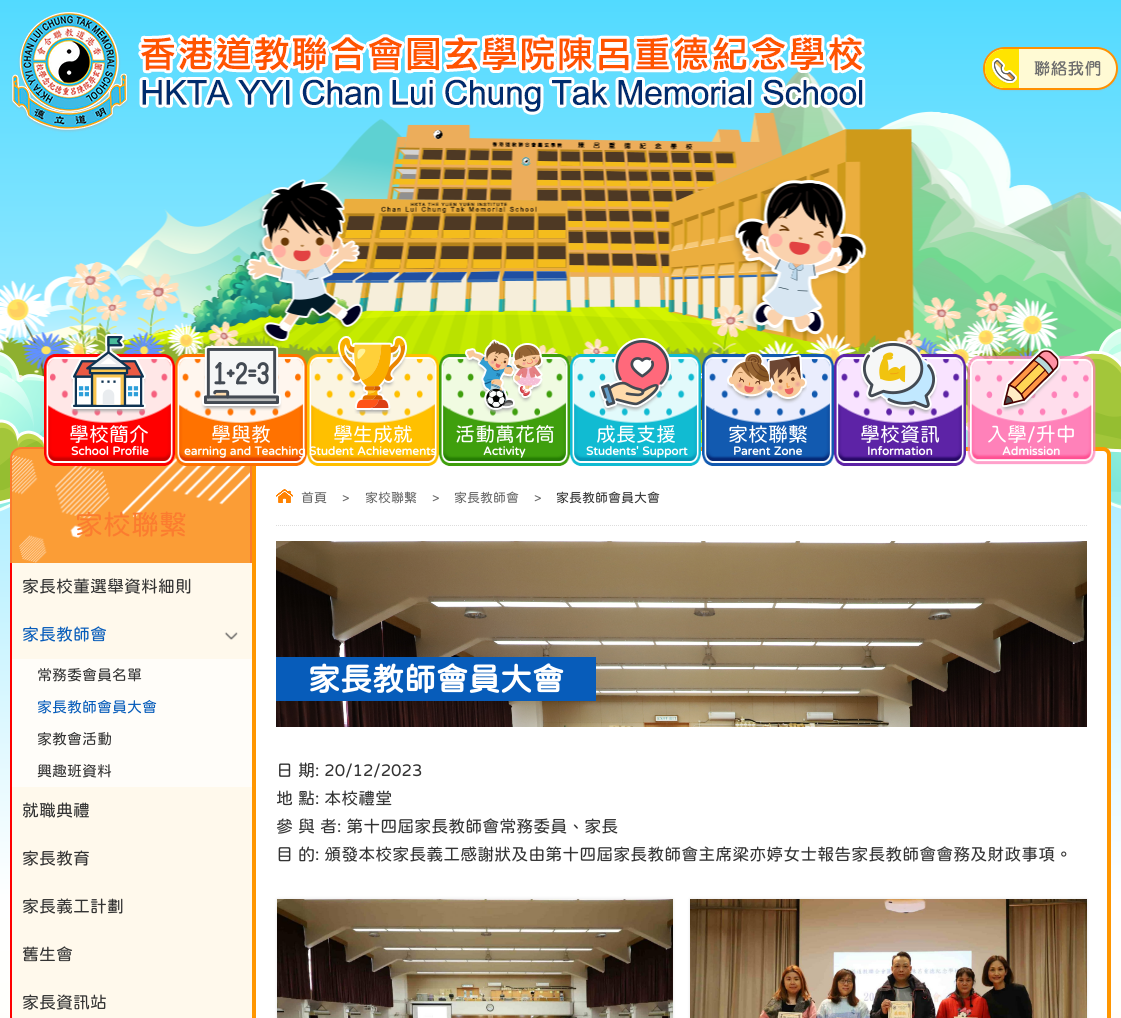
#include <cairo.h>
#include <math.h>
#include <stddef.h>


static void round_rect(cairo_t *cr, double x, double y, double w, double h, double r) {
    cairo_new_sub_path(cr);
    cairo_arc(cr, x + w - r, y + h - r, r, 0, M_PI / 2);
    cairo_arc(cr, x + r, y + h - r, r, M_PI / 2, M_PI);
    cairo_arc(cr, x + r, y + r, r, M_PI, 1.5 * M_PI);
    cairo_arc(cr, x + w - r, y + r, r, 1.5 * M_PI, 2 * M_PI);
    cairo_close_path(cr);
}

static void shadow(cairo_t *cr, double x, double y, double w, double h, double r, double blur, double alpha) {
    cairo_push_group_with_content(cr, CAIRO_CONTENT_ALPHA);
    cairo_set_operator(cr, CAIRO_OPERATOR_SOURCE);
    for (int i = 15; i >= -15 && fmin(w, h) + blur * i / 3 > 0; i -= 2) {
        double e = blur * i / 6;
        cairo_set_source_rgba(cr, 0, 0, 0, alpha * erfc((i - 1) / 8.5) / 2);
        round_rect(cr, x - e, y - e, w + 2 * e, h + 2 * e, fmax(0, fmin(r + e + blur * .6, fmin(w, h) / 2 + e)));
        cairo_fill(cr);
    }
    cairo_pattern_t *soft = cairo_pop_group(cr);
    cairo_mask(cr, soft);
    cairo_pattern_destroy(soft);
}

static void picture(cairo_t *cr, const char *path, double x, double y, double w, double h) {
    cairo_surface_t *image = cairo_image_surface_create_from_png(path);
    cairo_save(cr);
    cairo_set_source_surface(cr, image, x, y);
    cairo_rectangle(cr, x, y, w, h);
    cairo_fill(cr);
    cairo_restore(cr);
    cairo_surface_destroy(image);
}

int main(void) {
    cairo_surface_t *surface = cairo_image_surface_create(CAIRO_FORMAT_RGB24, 1121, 1018);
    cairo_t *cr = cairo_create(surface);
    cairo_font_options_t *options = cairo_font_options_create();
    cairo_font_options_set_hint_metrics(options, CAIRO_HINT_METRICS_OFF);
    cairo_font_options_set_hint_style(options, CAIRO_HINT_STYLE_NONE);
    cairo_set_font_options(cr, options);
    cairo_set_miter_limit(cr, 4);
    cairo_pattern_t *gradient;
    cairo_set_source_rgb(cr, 1, 1, 1);
    cairo_paint(cr);
    gradient = cairo_pattern_create_linear(560, 0, 561, 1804);
    cairo_pattern_add_color_stop_rgba(gradient, 0, 0.322, 0.855, 1, 1);
    cairo_pattern_add_color_stop_rgba(gradient, 0.5, 1, 1, 1, 1);
    cairo_pattern_add_color_stop_rgba(gradient, 1, 1, 0.984, 0.89, 1);
    cairo_set_source(cr, gradient);
    cairo_pattern_destroy(gradient);
    cairo_rectangle(cr, 0, 0, 1121, 1018);
    cairo_fill(cr);
    picture(cr, "img1.png", 0, 71, 1121, 376);
    picture(cr, "img2.png", 10, 11, 856, 122);
    picture(cr, "img3.png", 982, 47, 137, 45);
    picture(cr, "img4.png", 0, 352, 44, 160);
    picture(cr, "img5.png", 966, 328, 155, 181);
    cairo_set_source_rgb(cr, 0.984, 0.616, 0.212);
    cairo_new_path(cr);
    cairo_move_to(cr, 22, 447);
    cairo_line_to(cr, 240, 447);
    cairo_curve_to(cr, 246.5, 447, 252, 452.5, 252, 459);
    cairo_line_to(cr, 252, 563);
    cairo_line_to(cr, 10, 563);
    cairo_line_to(cr, 10, 459);
    cairo_curve_to(cr, 10, 452.5, 15.5, 447, 22, 447);
    cairo_close_path(cr);
    cairo_fill(cr);
    picture(cr, "img22.png", 12, 455, 238, 108);
    cairo_set_source_rgb(cr, 0.984, 0.486, 0.184);
    cairo_set_fill_rule(cr, CAIRO_FILL_RULE_EVEN_ODD);
    cairo_new_path(cr);
    cairo_move_to(cr, 22, 447);
    cairo_line_to(cr, 240, 447);
    cairo_curve_to(cr, 247, 447, 252, 452, 252, 459);
    cairo_line_to(cr, 252, 563);
    cairo_line_to(cr, 10, 563);
    cairo_line_to(cr, 10, 459);
    cairo_curve_to(cr, 10, 452, 15, 447, 22, 447);
    cairo_close_path(cr);
    cairo_move_to(cr, 22, 449);
    cairo_line_to(cr, 240, 449);
    cairo_curve_to(cr, 246, 449, 250, 453, 250, 459);
    cairo_line_to(cr, 250, 563);
    cairo_line_to(cr, 12, 563);
    cairo_line_to(cr, 12, 459);
    cairo_curve_to(cr, 12, 453, 16, 449, 22, 449);
    cairo_close_path(cr);
    cairo_fill(cr);
    picture(cr, "img6.png", 44, 354, 131, 112);
    picture(cr, "img7.png", 71, 334, 75, 80);
    cairo_select_font_face(cr, "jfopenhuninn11", CAIRO_FONT_SLANT_NORMAL, CAIRO_FONT_WEIGHT_NORMAL);
    cairo_set_font_size(cr, 20);
    cairo_set_source_rgb(cr, 1, 1, 1);
    cairo_move_to(cr, 69, 441);
    cairo_show_text(cr, "學校簡介");
    cairo_select_font_face(cr, "jfopenhuninn11", CAIRO_FONT_SLANT_NORMAL, CAIRO_FONT_WEIGHT_BOLD);
    cairo_set_font_size(cr, 12);
    cairo_move_to(cr, 71, 455);
    cairo_show_text(cr, "School Profile");
    round_rect(cr, 254, 449, 855, 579, 6);
    cairo_fill_preserve(cr);
    cairo_set_source_rgb(cr, 1, 0.588, 0);
    cairo_set_line_width(cr, 4);
    cairo_stroke(cr);
    picture(cr, "img8.png", 175, 354, 132, 112);
    picture(cr, "img9.png", 201, 346, 81, 65);
    cairo_select_font_face(cr, "jfopenhuninn11", CAIRO_FONT_SLANT_NORMAL, CAIRO_FONT_WEIGHT_NORMAL);
    cairo_set_font_size(cr, 20);
    cairo_set_source_rgb(cr, 1, 1, 1);
    cairo_move_to(cr, 211, 441);
    cairo_show_text(cr, "學與教");
    cairo_select_font_face(cr, "jfopenhuninn11", CAIRO_FONT_SLANT_NORMAL, CAIRO_FONT_WEIGHT_BOLD);
    cairo_set_font_size(cr, 12);
    cairo_move_to(cr, 184, 455);
    cairo_show_text(cr, "earning and Teaching");
    picture(cr, "img10.png", 307, 354, 132, 112);
    picture(cr, "img11.png", 337, 336, 71, 78);
    cairo_select_font_face(cr, "jfopenhuninn11", CAIRO_FONT_SLANT_NORMAL, CAIRO_FONT_WEIGHT_NORMAL);
    cairo_set_font_size(cr, 20);
    cairo_move_to(cr, 333, 441);
    cairo_show_text(cr, "學生成就");
    cairo_select_font_face(cr, "jfopenhuninn11", CAIRO_FONT_SLANT_NORMAL, CAIRO_FONT_WEIGHT_BOLD);
    cairo_set_font_size(cr, 12);
    cairo_move_to(cr, 309, 455);
    cairo_show_text(cr, "Student Achievements");
    picture(cr, "img12.png", 439, 354, 131, 112);
    picture(cr, "img13.png", 464, 339, 79, 75);
    cairo_select_font_face(cr, "jfopenhuninn11", CAIRO_FONT_SLANT_NORMAL, CAIRO_FONT_WEIGHT_NORMAL);
    cairo_set_font_size(cr, 20);
    cairo_move_to(cr, 455, 441);
    cairo_show_text(cr, "活動萬花筒");
    cairo_select_font_face(cr, "jfopenhuninn11", CAIRO_FONT_SLANT_NORMAL, CAIRO_FONT_WEIGHT_BOLD);
    cairo_set_font_size(cr, 12);
    cairo_move_to(cr, 483, 455);
    cairo_show_text(cr, "Activity");
    picture(cr, "img14.png", 570, 354, 131, 112);
    picture(cr, "img15.png", 599, 338, 73, 74);
    cairo_select_font_face(cr, "jfopenhuninn11", CAIRO_FONT_SLANT_NORMAL, CAIRO_FONT_WEIGHT_NORMAL);
    cairo_set_font_size(cr, 20);
    cairo_move_to(cr, 596, 441);
    cairo_show_text(cr, "成長支援");
    cairo_select_font_face(cr, "jfopenhuninn11", CAIRO_FONT_SLANT_NORMAL, CAIRO_FONT_WEIGHT_BOLD);
    cairo_set_font_size(cr, 12);
    cairo_move_to(cr, 586, 455);
    cairo_show_text(cr, "Students' Support");
    picture(cr, "img16.png", 702, 354, 132, 112);
    picture(cr, "img17.png", 727, 352, 80, 52);
    cairo_select_font_face(cr, "jfopenhuninn11", CAIRO_FONT_SLANT_NORMAL, CAIRO_FONT_WEIGHT_NORMAL);
    cairo_set_font_size(cr, 20);
    cairo_move_to(cr, 728, 441);
    cairo_show_text(cr, "家校聯繫");
    cairo_select_font_face(cr, "jfopenhuninn11", CAIRO_FONT_SLANT_NORMAL, CAIRO_FONT_WEIGHT_BOLD);
    cairo_set_font_size(cr, 12);
    cairo_move_to(cr, 733, 455);
    cairo_show_text(cr, "Parent Zone");
    picture(cr, "img18.png", 834, 354, 132, 112);
    picture(cr, "img19.png", 860, 341, 78, 73);
    cairo_select_font_face(cr, "jfopenhuninn11", CAIRO_FONT_SLANT_NORMAL, CAIRO_FONT_WEIGHT_NORMAL);
    cairo_set_font_size(cr, 20);
    cairo_move_to(cr, 860, 441);
    cairo_show_text(cr, "學校資訊");
    cairo_select_font_face(cr, "jfopenhuninn11", CAIRO_FONT_SLANT_NORMAL, CAIRO_FONT_WEIGHT_BOLD);
    cairo_set_font_size(cr, 12);
    cairo_move_to(cr, 867, 455);
    cairo_show_text(cr, "Information");
    picture(cr, "img20.png", 967, 355, 129, 110);
    picture(cr, "img21.png", 1001, 348, 60, 64);
    cairo_select_font_face(cr, "jfopenhuninn11", CAIRO_FONT_SLANT_NORMAL, CAIRO_FONT_WEIGHT_NORMAL);
    cairo_set_font_size(cr, 20);
    cairo_move_to(cr, 987, 441);
    cairo_show_text(cr, "入學/升中");
    cairo_select_font_face(cr, "jfopenhuninn11", CAIRO_FONT_SLANT_NORMAL, CAIRO_FONT_WEIGHT_BOLD);
    cairo_set_font_size(cr, 12);
    cairo_move_to(cr, 1002, 455);
    cairo_show_text(cr, "Admission");
    cairo_select_font_face(cr, "jfopenhuninn11", CAIRO_FONT_SLANT_NORMAL, CAIRO_FONT_WEIGHT_NORMAL);
    cairo_set_font_size(cr, 28);
    cairo_set_source_rgb(cr, 0.984, 0.486, 0.184);
    cairo_move_to(cr, 75, 534);
    cairo_show_text(cr, "家校聯繫");
    cairo_set_source_rgb(cr, 1, 0.973, 0.925);
    cairo_rectangle(cr, 10, 563, 242, 455);
    cairo_fill(cr);
    cairo_set_source_rgb(cr, 1, 0, 0);
    cairo_new_path(cr);
    cairo_move_to(cr, 10, 563);
    cairo_line_to(cr, 252, 563);
    cairo_line_to(cr, 252, 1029);
    cairo_line_to(cr, 22, 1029);
    cairo_curve_to(cr, 15, 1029, 10, 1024, 10, 1017);
    cairo_close_path(cr);
    cairo_move_to(cr, 12, 563);
    cairo_line_to(cr, 252, 563);
    cairo_line_to(cr, 252, 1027);
    cairo_line_to(cr, 22, 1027);
    cairo_curve_to(cr, 16, 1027, 12, 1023, 12, 1017);
    cairo_close_path(cr);
    cairo_fill(cr);
    cairo_set_font_size(cr, 17);
    cairo_set_source_rgb(cr, 0.2, 0.2, 0.2);
    cairo_move_to(cr, 22, 592);
    cairo_show_text(cr, "家長校董選舉資料細則");
    picture(cr, "img23.png", 224, 632, 14, 8);
    cairo_set_source_rgb(cr, 0.031, 0.361, 0.729);
    cairo_move_to(cr, 22, 640);
    cairo_show_text(cr, "家長教師會");
    cairo_set_source_rgb(cr, 1, 0.992, 0.976);
    cairo_rectangle(cr, 12, 659, 240, 128);
    cairo_fill(cr);
    cairo_set_font_size(cr, 15);
    cairo_set_source_rgb(cr, 0.2, 0.2, 0.2);
    cairo_move_to(cr, 37, 680);
    cairo_show_text(cr, "常務委會員名單");
    cairo_set_source_rgb(cr, 0.031, 0.361, 0.729);
    cairo_move_to(cr, 37, 712);
    cairo_show_text(cr, "家長教師會員大會");
    cairo_set_source_rgb(cr, 0.2, 0.2, 0.2);
    cairo_move_to(cr, 37, 744);
    cairo_show_text(cr, "家教會活動");
    cairo_move_to(cr, 37, 776);
    cairo_show_text(cr, "興趣班資料");
    cairo_set_font_size(cr, 17);
    cairo_move_to(cr, 22, 816);
    cairo_show_text(cr, "就職典禮");
    cairo_move_to(cr, 22, 864);
    cairo_show_text(cr, "家長教育");
    cairo_move_to(cr, 22, 912);
    cairo_show_text(cr, "家長義工計劃");
    cairo_move_to(cr, 22, 960);
    cairo_show_text(cr, "舊生會");
    cairo_move_to(cr, 22, 1008);
    cairo_show_text(cr, "家長資訊站");
    cairo_new_path(cr);
    cairo_move_to(cr, 276, 525.5);
    cairo_line_to(cr, 1087, 525.5);
    cairo_set_source_rgb(cr, 0.867, 0.867, 0.867);
    cairo_set_line_width(cr, 1);
    cairo_set_dash(cr, (double[]){1, 1}, 2, 0);
    cairo_stroke(cr);
    picture(cr, "img24.png", 276, 489, 17, 14);
    cairo_set_font_size(cr, 13);
    cairo_set_source_rgb(cr, 0.4, 0.4, 0.4);
    cairo_move_to(cr, 301, 502);
    cairo_show_text(cr, "首頁");
    cairo_move_to(cr, 342, 502);
    cairo_show_text(cr, ">");
    cairo_move_to(cr, 365, 502);
    cairo_show_text(cr, "家校聯繫");
    cairo_move_to(cr, 432, 502);
    cairo_show_text(cr, ">");
    cairo_move_to(cr, 454, 502);
    cairo_show_text(cr, "家長教師會");
    cairo_move_to(cr, 534, 502);
    cairo_show_text(cr, ">");
    cairo_set_source_rgb(cr, 0.2, 0.2, 0.2);
    cairo_move_to(cr, 556, 502);
    cairo_show_text(cr, "家長教師會員大會");
    picture(cr, "img25.png", 276, 541, 811, 186);
    cairo_set_source_rgb(cr, 0.031, 0.361, 0.729);
    cairo_rectangle(cr, 276, 657, 320, 44);
    cairo_fill(cr);
    cairo_select_font_face(cr, "jfopenhuninn11", CAIRO_FONT_SLANT_NORMAL, CAIRO_FONT_WEIGHT_BOLD);
    cairo_set_font_size(cr, 32);
    cairo_set_source_rgb(cr, 1, 1, 1);
    cairo_move_to(cr, 308, 690);
    cairo_show_text(cr, "家長教師會員大會");
    cairo_select_font_face(cr, "jfopenhuninn11", CAIRO_FONT_SLANT_NORMAL, CAIRO_FONT_WEIGHT_NORMAL);
    cairo_set_font_size(cr, 17);
    cairo_set_source_rgb(cr, 0.2, 0.2, 0.2);
    cairo_move_to(cr, 276, 776);
    cairo_show_text(cr, "日 期: 20/12/2023");
    cairo_move_to(cr, 276, 804);
    cairo_show_text(cr, "地 點: 本校禮堂");
    cairo_move_to(cr, 276, 832);
    cairo_show_text(cr, "參 與 者: 第十四屆家長教師會常務委員、家長");
    cairo_move_to(cr, 276, 860);
    cairo_show_text(cr, "目 的: 頒發本校家長義工感謝狀及由第十四屆家長教師會主席梁亦婷女士報告家長教師會會務及財政事項。");
    cairo_set_source_rgb(cr, 0, 0, 0);
    shadow(cr, 277, 899, 396, 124, 0, 1.5, 0.1);
    picture(cr, "img26.png", 277, 899, 396, 119);
    shadow(cr, 690, 899, 397, 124, 0, 1.5, 0.1);
    picture(cr, "img27.png", 690, 899, 397, 119);
    cairo_surface_write_to_png(surface, "page.png");
    cairo_font_options_destroy(options);
    cairo_destroy(cr);
    cairo_surface_destroy(surface);
    return 0;
}
